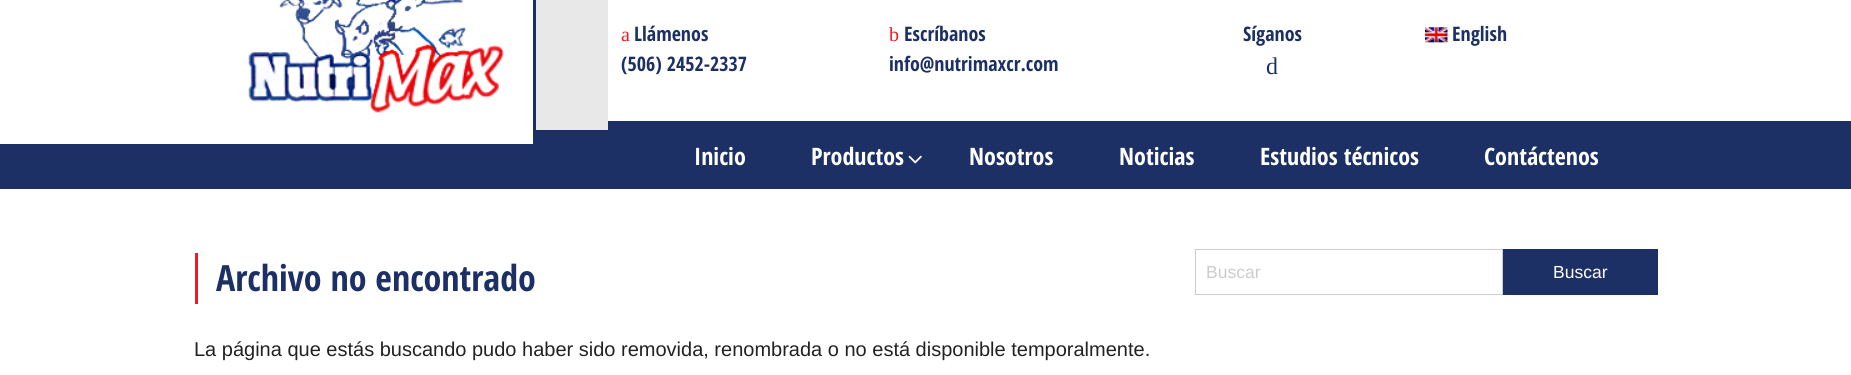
#include <cairo.h>
#include <math.h>
#include <stddef.h>


static void picture(cairo_t *cr, const char *path, double x, double y, double w, double h) {
    cairo_surface_t *image = cairo_image_surface_create_from_png(path);
    cairo_save(cr);
    cairo_set_source_surface(cr, image, x, y);
    cairo_rectangle(cr, x, y, w, h);
    cairo_fill(cr);
    cairo_restore(cr);
    cairo_surface_destroy(image);
}

int main(void) {
    cairo_surface_t *surface = cairo_image_surface_create(CAIRO_FORMAT_RGB24, 1851, 375);
    cairo_t *cr = cairo_create(surface);
    cairo_font_options_t *options = cairo_font_options_create();
    cairo_font_options_set_hint_metrics(options, CAIRO_HINT_METRICS_OFF);
    cairo_font_options_set_hint_style(options, CAIRO_HINT_STYLE_NONE);
    cairo_set_font_options(cr, options);
    cairo_set_miter_limit(cr, 4);
    cairo_set_source_rgb(cr, 1, 1, 1);
    cairo_paint(cr);
    cairo_set_source_rgb(cr, 0.114, 0.188, 0.396);
    cairo_rectangle(cr, 0, 0, 1851, 189);
    cairo_fill(cr);
    cairo_set_source_rgb(cr, 1, 1, 1);
    cairo_rectangle(cr, 0, 0, 533, 144);
    cairo_fill(cr);
    cairo_rectangle(cr, 608, 0, 1243, 121);
    cairo_fill(cr);
    cairo_select_font_face(cr, "Liberation Serif", CAIRO_FONT_SLANT_NORMAL, CAIRO_FONT_WEIGHT_NORMAL);
    cairo_set_font_size(cr, 20);
    cairo_set_source_rgb(cr, 0.929, 0.11, 0.141);
    cairo_move_to(cr, 621, 41);
    cairo_show_text(cr, "a");
    cairo_select_font_face(cr, "Open Sans Condensed", CAIRO_FONT_SLANT_NORMAL, CAIRO_FONT_WEIGHT_BOLD);
    cairo_set_source_rgb(cr, 0.114, 0.188, 0.396);
    cairo_move_to(cr, 634, 41);
    cairo_show_text(cr, "Llámenos");
    cairo_move_to(cr, 621, 71);
    cairo_show_text(cr, "(506) 2452-2337");
    cairo_select_font_face(cr, "Liberation Serif", CAIRO_FONT_SLANT_NORMAL, CAIRO_FONT_WEIGHT_NORMAL);
    cairo_set_source_rgb(cr, 0.929, 0.11, 0.141);
    cairo_move_to(cr, 889, 41);
    cairo_show_text(cr, "b");
    cairo_select_font_face(cr, "Open Sans Condensed", CAIRO_FONT_SLANT_NORMAL, CAIRO_FONT_WEIGHT_BOLD);
    cairo_set_source_rgb(cr, 0.114, 0.188, 0.396);
    cairo_move_to(cr, 904, 41);
    cairo_show_text(cr, "Escríbanos");
    cairo_move_to(cr, 889, 71);
    cairo_show_text(cr, "info@nutrimaxcr.com");
    cairo_move_to(cr, 1243, 41);
    cairo_show_text(cr, "Síganos");
    cairo_select_font_face(cr, "Liberation Serif", CAIRO_FONT_SLANT_NORMAL, CAIRO_FONT_WEIGHT_NORMAL);
    cairo_set_font_size(cr, 24);
    cairo_move_to(cr, 1266, 74);
    cairo_show_text(cr, "d");
    picture(cr, "img1.png", 1425, 27, 23, 16);
    cairo_select_font_face(cr, "Open Sans Condensed", CAIRO_FONT_SLANT_NORMAL, CAIRO_FONT_WEIGHT_BOLD);
    cairo_set_font_size(cr, 20);
    cairo_move_to(cr, 1452, 41);
    cairo_show_text(cr, "English");
    picture(cr, "img2.png", 248, 0, 256, 113);
    cairo_set_source_rgb(cr, 0.91, 0.91, 0.91);
    cairo_rectangle(cr, 536, 0, 72, 130);
    cairo_fill(cr);
    cairo_set_font_size(cr, 24);
    cairo_set_source_rgb(cr, 1, 1, 1);
    cairo_move_to(cr, 694, 165);
    cairo_show_text(cr, "Inicio");
    cairo_move_to(cr, 811, 165);
    cairo_show_text(cr, "Productos");
    picture(cr, "img3.png", 908, 155, 14, 9);
    cairo_move_to(cr, 969, 165);
    cairo_show_text(cr, "Nosotros");
    cairo_move_to(cr, 1119, 165);
    cairo_show_text(cr, "Noticias");
    cairo_move_to(cr, 1260, 165);
    cairo_show_text(cr, "Estudios técnicos");
    cairo_move_to(cr, 1484, 165);
    cairo_show_text(cr, "Contáctenos");
    cairo_set_source_rgb(cr, 0.929, 0.11, 0.141);
    cairo_rectangle(cr, 195, 253, 3, 51);
    cairo_fill(cr);
    cairo_set_font_size(cr, 36);
    cairo_set_source_rgb(cr, 0.114, 0.188, 0.396);
    cairo_move_to(cr, 216, 291);
    cairo_show_text(cr, "Archivo no encontrado");
    cairo_select_font_face(cr, "Liberation Sans", CAIRO_FONT_SLANT_NORMAL, CAIRO_FONT_WEIGHT_NORMAL);
    cairo_set_font_size(cr, 20);
    cairo_set_source_rgb(cr, 0.133, 0.133, 0.133);
    cairo_move_to(cr, 194, 356);
    cairo_show_text(cr, "La página que estás buscando pudo haber sido removida, renombrada o no está disponible temporalmente.");
    cairo_rectangle(cr, 1195.5, 249.5, 307, 45);
    cairo_set_source_rgb(cr, 0.8, 0.8, 0.8);
    cairo_set_line_width(cr, 1);
    cairo_stroke(cr);
    cairo_set_font_size(cr, 17.5);
    cairo_move_to(cr, 1206, 278);
    cairo_show_text(cr, "Buscar");
    cairo_set_source_rgb(cr, 0.114, 0.188, 0.396);
    cairo_rectangle(cr, 1503, 249, 155, 46);
    cairo_fill(cr);
    cairo_set_source_rgb(cr, 1, 1, 1);
    cairo_move_to(cr, 1553, 278);
    cairo_show_text(cr, "Buscar");
    cairo_surface_write_to_png(surface, "page.png");
    cairo_font_options_destroy(options);
    cairo_destroy(cr);
    cairo_surface_destroy(surface);
    return 0;
}
